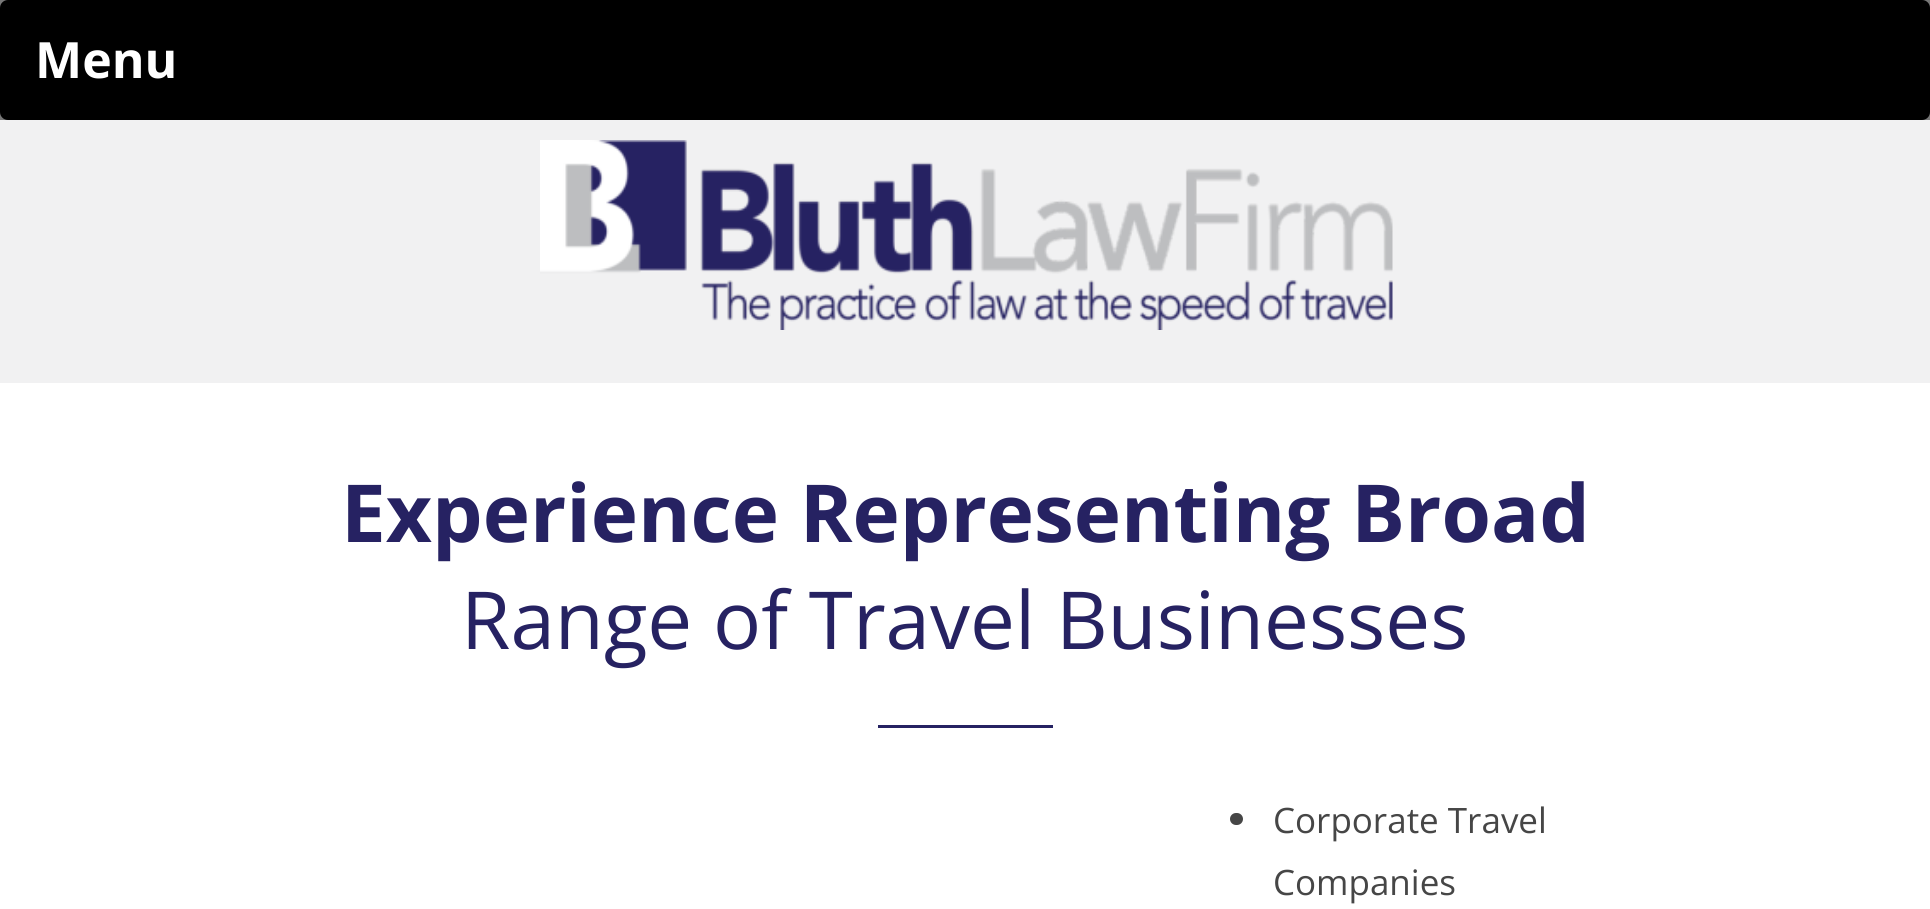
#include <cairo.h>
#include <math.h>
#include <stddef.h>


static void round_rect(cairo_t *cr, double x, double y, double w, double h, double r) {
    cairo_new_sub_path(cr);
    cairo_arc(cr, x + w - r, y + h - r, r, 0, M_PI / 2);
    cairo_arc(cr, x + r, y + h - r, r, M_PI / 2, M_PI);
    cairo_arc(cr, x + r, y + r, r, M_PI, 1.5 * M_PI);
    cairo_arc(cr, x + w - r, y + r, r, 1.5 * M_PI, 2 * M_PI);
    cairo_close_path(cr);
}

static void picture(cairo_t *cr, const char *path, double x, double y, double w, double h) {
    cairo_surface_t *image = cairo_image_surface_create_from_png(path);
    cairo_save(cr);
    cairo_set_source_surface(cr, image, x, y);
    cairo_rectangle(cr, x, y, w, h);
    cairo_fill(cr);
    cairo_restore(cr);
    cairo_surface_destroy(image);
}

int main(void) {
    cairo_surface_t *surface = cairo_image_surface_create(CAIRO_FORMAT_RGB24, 1930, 909);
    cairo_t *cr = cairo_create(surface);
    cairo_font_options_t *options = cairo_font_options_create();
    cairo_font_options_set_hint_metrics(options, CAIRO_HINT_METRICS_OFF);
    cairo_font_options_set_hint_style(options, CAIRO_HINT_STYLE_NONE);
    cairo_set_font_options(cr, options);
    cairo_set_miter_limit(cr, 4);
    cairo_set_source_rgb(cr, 1, 1, 1);
    cairo_paint(cr);
    cairo_set_source_rgb(cr, 0.945, 0.945, 0.949);
    cairo_rectangle(cr, 0, 120, 1930, 263);
    cairo_fill(cr);
    cairo_set_source_rgb(cr, 0.467, 0.467, 0.467);
    cairo_rectangle(cr, 0, 0, 1930, 120);
    cairo_fill(cr);
    cairo_set_source_rgb(cr, 0, 0, 0);
    round_rect(cr, 0, 0, 1930, 120, 8);
    cairo_fill(cr);
    cairo_select_font_face(cr, "Open Sans", CAIRO_FONT_SLANT_NORMAL, CAIRO_FONT_WEIGHT_BOLD);
    cairo_set_font_size(cr, 50);
    cairo_set_source_rgb(cr, 1, 1, 1);
    cairo_move_to(cr, 35, 78);
    cairo_show_text(cr, "Menu");
    picture(cr, "img1.png", 540, 140, 853, 190);
    cairo_set_font_size(cr, 80);
    cairo_set_source_rgb(cr, 0.149, 0.133, 0.384);
    cairo_move_to(cr, 341, 542);
    cairo_show_text(cr, "Experience Representing Broad");
    cairo_select_font_face(cr, "Open Sans", CAIRO_FONT_SLANT_NORMAL, CAIRO_FONT_WEIGHT_NORMAL);
    cairo_move_to(cr, 461, 649);
    cairo_show_text(cr, "Range of Travel Businesses");
    cairo_rectangle(cr, 878, 725, 175, 3);
    cairo_fill(cr);
    cairo_set_source_rgb(cr, 0.275, 0.275, 0.275);
    round_rect(cr, 1230, 813, 13, 12, 6);
    cairo_fill(cr);
    cairo_set_font_size(cr, 35);
    cairo_move_to(cr, 1273, 833);
    cairo_show_text(cr, "Corporate Travel");
    cairo_move_to(cr, 1273, 895);
    cairo_show_text(cr, "Companies");
    cairo_surface_write_to_png(surface, "page.png");
    cairo_font_options_destroy(options);
    cairo_destroy(cr);
    cairo_surface_destroy(surface);
    return 0;
}
